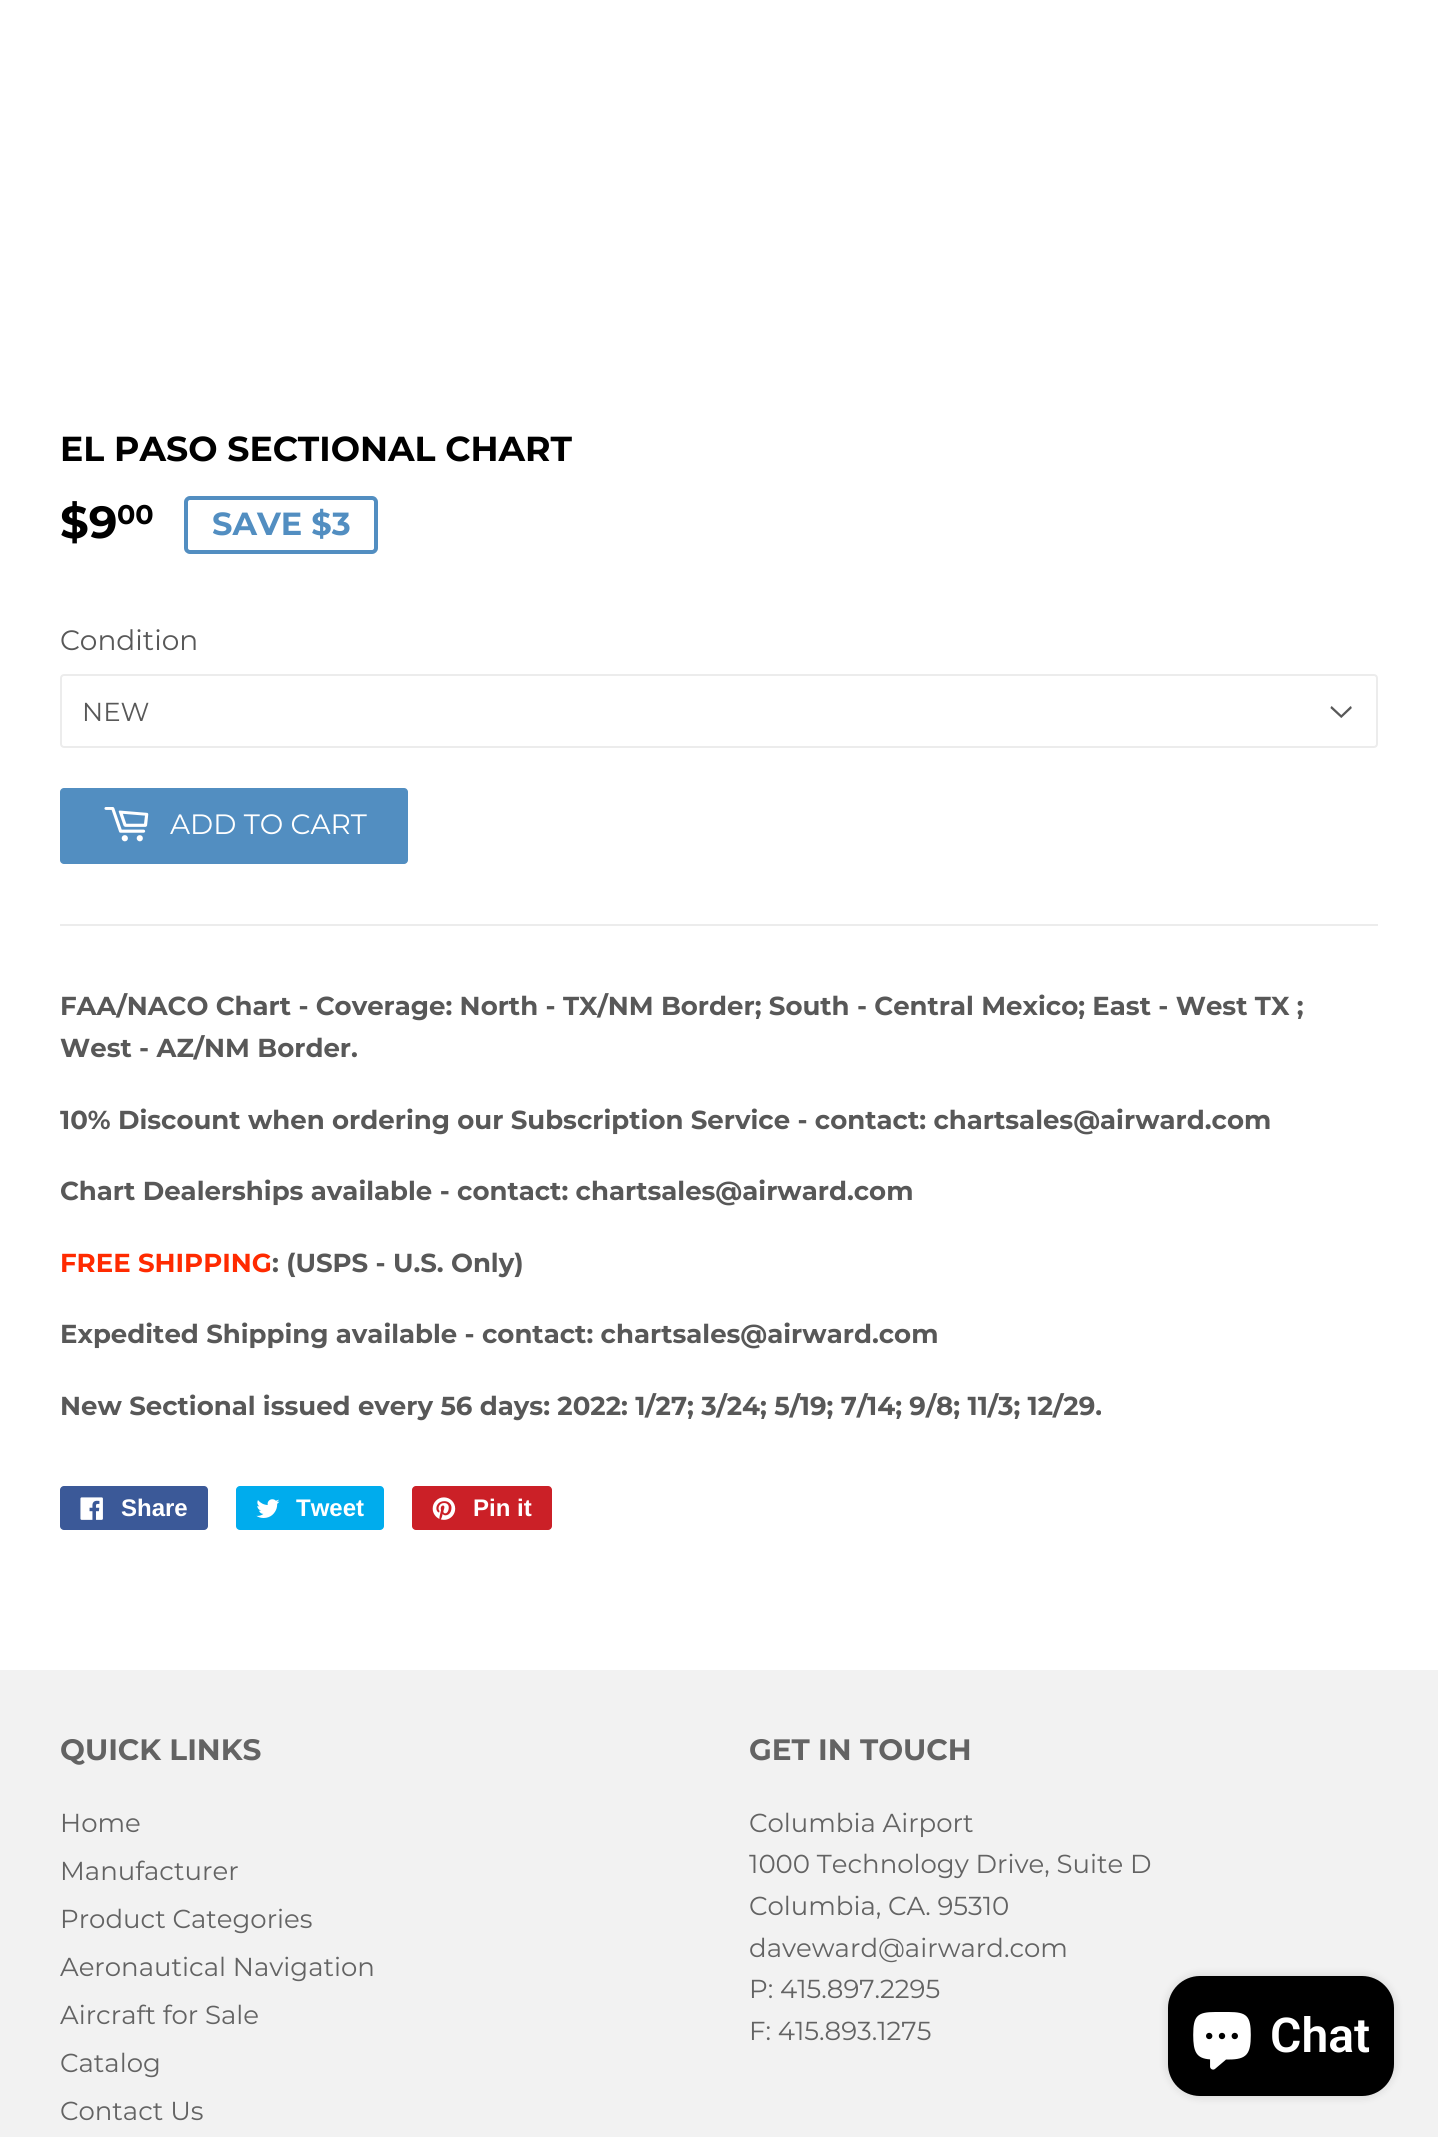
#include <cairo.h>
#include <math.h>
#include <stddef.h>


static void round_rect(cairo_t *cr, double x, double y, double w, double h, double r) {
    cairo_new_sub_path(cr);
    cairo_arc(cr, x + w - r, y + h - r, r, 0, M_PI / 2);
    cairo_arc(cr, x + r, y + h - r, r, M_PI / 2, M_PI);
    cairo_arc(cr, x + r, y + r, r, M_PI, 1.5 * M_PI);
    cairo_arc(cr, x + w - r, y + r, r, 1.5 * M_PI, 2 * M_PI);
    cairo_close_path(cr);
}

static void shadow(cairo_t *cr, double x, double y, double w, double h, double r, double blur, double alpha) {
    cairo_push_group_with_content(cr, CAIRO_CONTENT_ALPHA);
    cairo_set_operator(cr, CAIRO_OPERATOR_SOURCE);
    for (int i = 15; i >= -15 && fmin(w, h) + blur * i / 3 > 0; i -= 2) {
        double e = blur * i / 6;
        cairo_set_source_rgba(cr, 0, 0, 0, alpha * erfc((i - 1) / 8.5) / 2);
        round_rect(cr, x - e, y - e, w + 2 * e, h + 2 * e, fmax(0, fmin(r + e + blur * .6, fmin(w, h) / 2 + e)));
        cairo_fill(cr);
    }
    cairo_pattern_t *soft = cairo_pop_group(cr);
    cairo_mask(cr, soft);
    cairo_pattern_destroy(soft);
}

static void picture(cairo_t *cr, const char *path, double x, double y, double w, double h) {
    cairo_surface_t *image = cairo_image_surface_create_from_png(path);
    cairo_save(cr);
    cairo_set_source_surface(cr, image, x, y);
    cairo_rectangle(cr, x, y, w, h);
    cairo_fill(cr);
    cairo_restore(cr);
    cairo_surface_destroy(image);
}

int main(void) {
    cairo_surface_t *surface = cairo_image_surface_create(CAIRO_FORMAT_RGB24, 1438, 2137);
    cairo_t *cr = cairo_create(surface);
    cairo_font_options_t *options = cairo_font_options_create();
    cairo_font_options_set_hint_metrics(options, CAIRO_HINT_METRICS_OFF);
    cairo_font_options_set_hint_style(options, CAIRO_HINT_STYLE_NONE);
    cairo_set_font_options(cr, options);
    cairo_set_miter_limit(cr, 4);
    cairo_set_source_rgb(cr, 1, 1, 1);
    cairo_paint(cr);
    cairo_select_font_face(cr, "Montserrat", CAIRO_FONT_SLANT_NORMAL, CAIRO_FONT_WEIGHT_BOLD);
    cairo_set_font_size(cr, 34.7);
    cairo_set_source_rgb(cr, 0, 0, 0);
    cairo_move_to(cr, 60, 461);
    cairo_show_text(cr, "EL PASO SECTIONAL CHART");
    cairo_set_font_size(cr, 45);
    cairo_move_to(cr, 60, 538);
    cairo_show_text(cr, "$9");
    cairo_set_font_size(cr, 27);
    cairo_move_to(cr, 117, 524);
    cairo_show_text(cr, "00");
    round_rect(cr, 186, 498, 190, 54, 4);
    cairo_set_source_rgb(cr, 0.322, 0.557, 0.757);
    cairo_set_line_width(cr, 4);
    cairo_stroke(cr);
    cairo_set_font_size(cr, 32);
    cairo_move_to(cr, 212, 535);
    cairo_show_text(cr, "SAVE $3");
    cairo_select_font_face(cr, "Montserrat", CAIRO_FONT_SLANT_NORMAL, CAIRO_FONT_WEIGHT_NORMAL);
    cairo_set_font_size(cr, 28);
    cairo_set_source_rgb(cr, 0.345, 0.345, 0.345);
    cairo_move_to(cr, 60, 650);
    cairo_show_text(cr, "Condition");
    picture(cr, "img1.png", 1330, 706, 22, 12);
    round_rect(cr, 61, 675, 1316, 72, 3);
    cairo_set_source_rgb(cr, 0.925, 0.925, 0.925);
    cairo_set_line_width(cr, 2);
    cairo_stroke(cr);
    cairo_set_font_size(cr, 26);
    cairo_set_source_rgb(cr, 0.345, 0.345, 0.345);
    cairo_move_to(cr, 82, 721);
    cairo_show_text(cr, "NEW");
    cairo_set_source_rgb(cr, 0.322, 0.557, 0.757);
    round_rect(cr, 60, 788, 348, 76, 4);
    cairo_fill(cr);
    picture(cr, "img2.png", 104, 807, 45, 35);
    cairo_set_font_size(cr, 28);
    cairo_set_source_rgb(cr, 1, 1, 1);
    cairo_move_to(cr, 170, 834);
    cairo_show_text(cr, "ADD TO CART");
    cairo_set_source_rgb(cr, 0.925, 0.925, 0.925);
    cairo_rectangle(cr, 60, 924, 1318, 2);
    cairo_fill(cr);
    cairo_select_font_face(cr, "Montserrat", CAIRO_FONT_SLANT_NORMAL, CAIRO_FONT_WEIGHT_BOLD);
    cairo_set_font_size(cr, 26);
    cairo_set_source_rgb(cr, 0.345, 0.345, 0.345);
    cairo_move_to(cr, 60, 1015);
    cairo_show_text(cr, "FAA/NACO Chart - Coverage: North - TX/NM Border; South - Central Mexico; East - West TX ;");
    cairo_move_to(cr, 60, 1057);
    cairo_show_text(cr, "West - AZ/NM Border.");
    cairo_move_to(cr, 60, 1129);
    cairo_show_text(cr, "10% Discount when ordering our Subscription Service - contact: chartsales@airward.com");
    cairo_move_to(cr, 60, 1200);
    cairo_show_text(cr, "Chart Dealerships available - contact: chartsales@airward.com");
    cairo_set_source_rgb(cr, 1, 0.165, 0);
    cairo_move_to(cr, 60, 1272);
    cairo_show_text(cr, "FREE SHIPPING");
    cairo_set_source_rgb(cr, 0.345, 0.345, 0.345);
    cairo_move_to(cr, 272, 1272);
    cairo_show_text(cr, ": (USPS - U.S. Only)");
    cairo_move_to(cr, 60, 1343);
    cairo_show_text(cr, "Expedited Shipping available - contact: chartsales@airward.com");
    cairo_move_to(cr, 60, 1415);
    cairo_show_text(cr, "New Sectional issued every 56 days: 2022: 1/27; 3/24; 5/19; 7/14; 9/8; 11/3; 12/29.");
    cairo_set_source_rgb(cr, 0.231, 0.349, 0.596);
    round_rect(cr, 60, 1486, 148, 44, 4);
    cairo_fill(cr);
    picture(cr, "img3.png", 80, 1497, 23, 23);
    cairo_select_font_face(cr, "Liberation Sans", CAIRO_FONT_SLANT_NORMAL, CAIRO_FONT_WEIGHT_BOLD);
    cairo_set_font_size(cr, 24);
    cairo_set_source_rgb(cr, 1, 1, 1);
    cairo_move_to(cr, 121, 1516);
    cairo_show_text(cr, "Share");
    cairo_set_source_rgb(cr, 0, 0.675, 0.929);
    round_rect(cr, 236, 1486, 148, 44, 4);
    cairo_fill(cr);
    picture(cr, "img4.png", 256, 1499, 24, 19);
    cairo_set_source_rgb(cr, 1, 1, 1);
    cairo_move_to(cr, 296, 1516);
    cairo_show_text(cr, "Tweet");
    cairo_set_source_rgb(cr, 0.796, 0.125, 0.153);
    round_rect(cr, 412, 1486, 140, 44, 4);
    cairo_fill(cr);
    picture(cr, "img5.png", 432, 1497, 24, 23);
    cairo_set_source_rgb(cr, 1, 1, 1);
    cairo_move_to(cr, 473, 1516);
    cairo_show_text(cr, "Pin it");
    cairo_set_source_rgb(cr, 0.949, 0.949, 0.949);
    cairo_rectangle(cr, 0, 1670, 1438, 467);
    cairo_fill(cr);
    cairo_select_font_face(cr, "Montserrat", CAIRO_FONT_SLANT_NORMAL, CAIRO_FONT_WEIGHT_BOLD);
    cairo_set_font_size(cr, 29.5);
    cairo_set_source_rgb(cr, 0.388, 0.388, 0.388);
    cairo_move_to(cr, 60, 1760);
    cairo_show_text(cr, "QUICK LINKS");
    cairo_select_font_face(cr, "Montserrat", CAIRO_FONT_SLANT_NORMAL, CAIRO_FONT_WEIGHT_NORMAL);
    cairo_set_font_size(cr, 26);
    cairo_move_to(cr, 60, 1832);
    cairo_show_text(cr, "Home");
    cairo_move_to(cr, 60, 1880);
    cairo_show_text(cr, "Manufacturer");
    cairo_move_to(cr, 60, 1928);
    cairo_show_text(cr, "Product Categories");
    cairo_move_to(cr, 60, 1976);
    cairo_show_text(cr, "Aeronautical Navigation");
    cairo_move_to(cr, 60, 2024);
    cairo_show_text(cr, "Aircraft for Sale");
    cairo_move_to(cr, 60, 2072);
    cairo_show_text(cr, "Catalog");
    cairo_move_to(cr, 60, 2120);
    cairo_show_text(cr, "Contact Us");
    cairo_select_font_face(cr, "Montserrat", CAIRO_FONT_SLANT_NORMAL, CAIRO_FONT_WEIGHT_BOLD);
    cairo_set_font_size(cr, 29.5);
    cairo_move_to(cr, 749, 1760);
    cairo_show_text(cr, "GET IN TOUCH");
    cairo_select_font_face(cr, "Montserrat", CAIRO_FONT_SLANT_NORMAL, CAIRO_FONT_WEIGHT_NORMAL);
    cairo_set_font_size(cr, 26);
    cairo_move_to(cr, 749, 1832);
    cairo_show_text(cr, "Columbia Airport");
    cairo_move_to(cr, 749, 1873);
    cairo_show_text(cr, "1000 Technology Drive, Suite D");
    cairo_move_to(cr, 749, 1915);
    cairo_show_text(cr, "Columbia, CA. 95310");
    cairo_move_to(cr, 749, 1957);
    cairo_show_text(cr, "daveward@airward.com");
    cairo_move_to(cr, 749, 1998);
    cairo_show_text(cr, "P: 415.897.2295");
    cairo_move_to(cr, 749, 2040);
    cairo_show_text(cr, "F: 415.893.1275");
    cairo_set_source_rgb(cr, 0, 0, 0);
    shadow(cr, 1168, 1976, 226, 120, 32, 5, 0.15);
    cairo_set_source_rgb(cr, 0, 0, 0);
    round_rect(cr, 1168, 1976, 226, 120, 32);
    cairo_fill(cr);
    picture(cr, "img6.png", 1193, 2012, 58, 58);
    cairo_select_font_face(cr, "Roboto SemiBold", CAIRO_FONT_SLANT_NORMAL, CAIRO_FONT_WEIGHT_NORMAL);
    cairo_set_font_size(cr, 48);
    cairo_set_source_rgb(cr, 1, 1, 1);
    cairo_move_to(cr, 1270, 2052);
    cairo_show_text(cr, "Chat");
    cairo_surface_write_to_png(surface, "page.png");
    cairo_font_options_destroy(options);
    cairo_destroy(cr);
    cairo_surface_destroy(surface);
    return 0;
}
